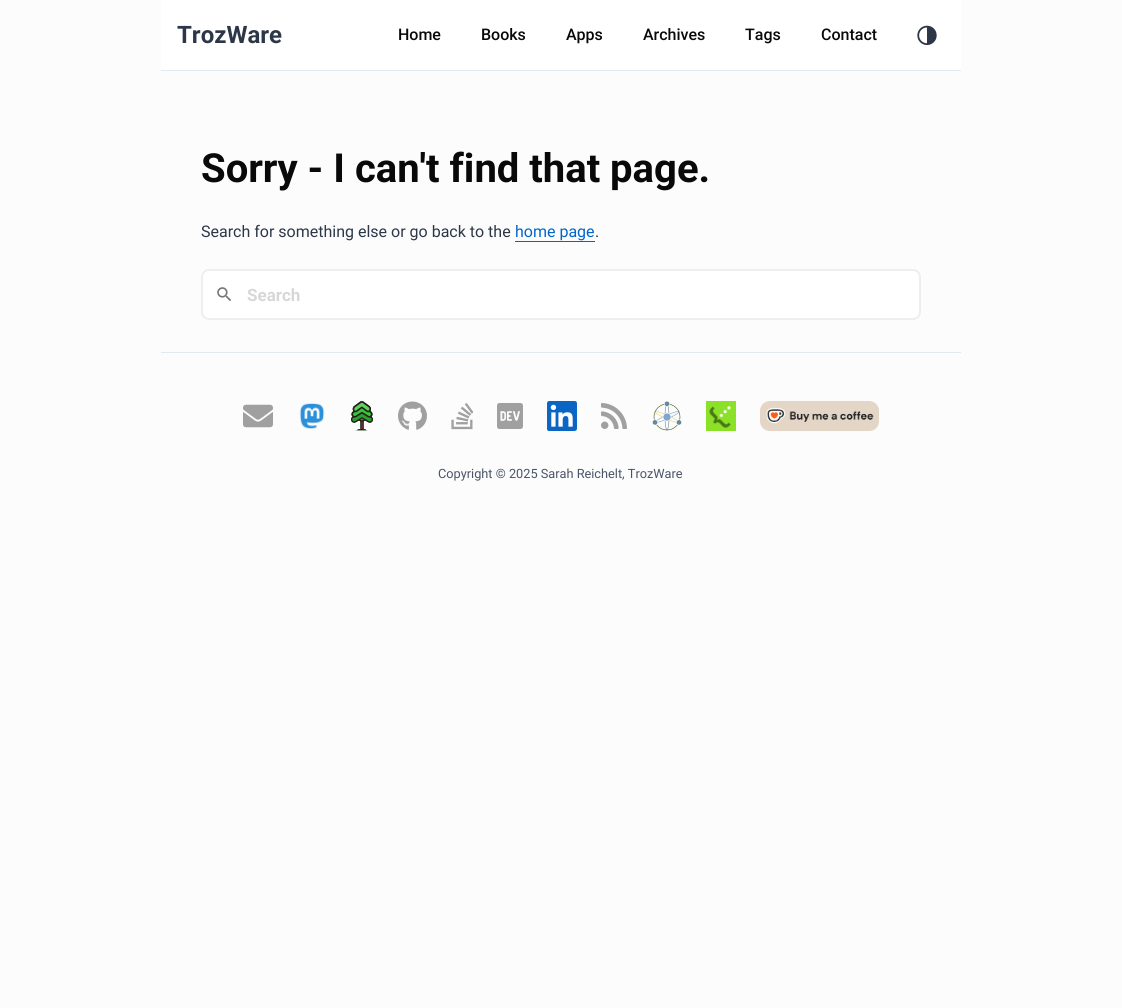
#include <cairo.h>
#include <math.h>
#include <stddef.h>


static void round_rect(cairo_t *cr, double x, double y, double w, double h, double r) {
    cairo_new_sub_path(cr);
    cairo_arc(cr, x + w - r, y + h - r, r, 0, M_PI / 2);
    cairo_arc(cr, x + r, y + h - r, r, M_PI / 2, M_PI);
    cairo_arc(cr, x + r, y + r, r, M_PI, 1.5 * M_PI);
    cairo_arc(cr, x + w - r, y + r, r, 1.5 * M_PI, 2 * M_PI);
    cairo_close_path(cr);
}

static void picture(cairo_t *cr, const char *path, double x, double y, double w, double h) {
    cairo_surface_t *image = cairo_image_surface_create_from_png(path);
    cairo_save(cr);
    cairo_set_source_surface(cr, image, x, y);
    cairo_rectangle(cr, x, y, w, h);
    cairo_fill(cr);
    cairo_restore(cr);
    cairo_surface_destroy(image);
}

int main(void) {
    cairo_surface_t *surface = cairo_image_surface_create(CAIRO_FORMAT_RGB24, 1122, 1008);
    cairo_t *cr = cairo_create(surface);
    cairo_font_options_t *options = cairo_font_options_create();
    cairo_font_options_set_hint_metrics(options, CAIRO_HINT_METRICS_OFF);
    cairo_font_options_set_hint_style(options, CAIRO_HINT_STYLE_NONE);
    cairo_set_font_options(cr, options);
    cairo_set_miter_limit(cr, 4);
    cairo_set_source_rgb(cr, 0.988, 0.988, 0.988);
    cairo_paint(cr);
    cairo_set_source_rgb(cr, 1, 1, 1);
    cairo_rectangle(cr, 161, 0, 800, 70);
    cairo_fill(cr);
    cairo_set_source_rgb(cr, 0.886, 0.91, 0.941);
    cairo_rectangle(cr, 161, 70, 800, 1);
    cairo_fill(cr);
    cairo_select_font_face(cr, "Roboto", CAIRO_FONT_SLANT_NORMAL, CAIRO_FONT_WEIGHT_BOLD);
    cairo_set_font_size(cr, 24);
    cairo_set_source_rgb(cr, 0.176, 0.216, 0.282);
    cairo_move_to(cr, 177, 43);
    cairo_show_text(cr, "TrozWare");
    cairo_select_font_face(cr, "Roboto Medium", CAIRO_FONT_SLANT_NORMAL, CAIRO_FONT_WEIGHT_NORMAL);
    cairo_set_font_size(cr, 16);
    cairo_set_source_rgb(cr, 0.039, 0.039, 0.039);
    cairo_move_to(cr, 398, 40);
    cairo_show_text(cr, "Home");
    cairo_move_to(cr, 481, 40);
    cairo_show_text(cr, "Books");
    cairo_move_to(cr, 566, 40);
    cairo_show_text(cr, "Apps");
    cairo_move_to(cr, 643, 40);
    cairo_show_text(cr, "Archives");
    cairo_move_to(cr, 745, 40);
    cairo_show_text(cr, "Tags");
    cairo_move_to(cr, 821, 40);
    cairo_show_text(cr, "Contact");
    picture(cr, "img1.png", 917, 25, 20, 20);
    cairo_select_font_face(cr, "Roboto", CAIRO_FONT_SLANT_NORMAL, CAIRO_FONT_WEIGHT_BOLD);
    cairo_set_font_size(cr, 40);
    cairo_move_to(cr, 201, 182);
    cairo_show_text(cr, "Sorry - I can't find that page.");
    cairo_select_font_face(cr, "Roboto", CAIRO_FONT_SLANT_NORMAL, CAIRO_FONT_WEIGHT_NORMAL);
    cairo_set_font_size(cr, 16);
    cairo_set_source_rgb(cr, 0.176, 0.216, 0.282);
    cairo_move_to(cr, 201, 237);
    cairo_show_text(cr, "Search for something else or go back to the");
    cairo_set_source_rgb(cr, 0, 0.4, 0.8);
    cairo_move_to(cr, 515, 237);
    cairo_show_text(cr, "home page");
    cairo_rectangle(cr, 515, 241, 80, 1);
    cairo_fill(cr);
    cairo_set_source_rgb(cr, 0.176, 0.216, 0.282);
    cairo_move_to(cr, 595, 237);
    cairo_show_text(cr, ".");
    cairo_set_source_rgb(cr, 1, 1, 1);
    round_rect(cr, 202, 270, 718, 49, 7);
    cairo_fill_preserve(cr);
    cairo_set_source_rgb(cr, 0.933, 0.933, 0.933);
    cairo_stroke(cr);
    picture(cr, "img2.png", 217, 287, 14, 14);
    cairo_select_font_face(cr, "Roboto", CAIRO_FONT_SLANT_NORMAL, CAIRO_FONT_WEIGHT_BOLD);
    cairo_set_font_size(cr, 17);
    cairo_set_source_rgb(cr, 0.843, 0.843, 0.843);
    cairo_move_to(cr, 247, 301);
    cairo_show_text(cr, "Search");
    cairo_set_source_rgb(cr, 0.886, 0.91, 0.941);
    cairo_rectangle(cr, 161, 352, 800, 1);
    cairo_fill(cr);
    picture(cr, "img3.png", 243, 404, 30, 24);
    picture(cr, "img4.png", 299, 403, 26, 26);
    picture(cr, "img5.png", 351, 401, 22, 30);
    picture(cr, "img6.png", 398, 401, 29, 29);
    picture(cr, "img7.png", 451, 403, 22, 27);
    picture(cr, "img8.png", 497, 403, 26, 26);
    picture(cr, "img9.png", 547, 401, 30, 30);
    picture(cr, "img10.png", 601, 403, 26, 26);
    picture(cr, "img11.png", 652, 401, 30, 30);
    picture(cr, "img12.png", 706, 401, 30, 30);
    picture(cr, "img13.png", 760, 401, 119, 30);
    cairo_select_font_face(cr, "Roboto", CAIRO_FONT_SLANT_NORMAL, CAIRO_FONT_WEIGHT_NORMAL);
    cairo_set_font_size(cr, 12.75);
    cairo_set_source_rgb(cr, 0.29, 0.333, 0.408);
    cairo_move_to(cr, 438, 478);
    cairo_show_text(cr, "Copyright © 2025 Sarah Reichelt, TrozWare");
    cairo_surface_write_to_png(surface, "page.png");
    cairo_font_options_destroy(options);
    cairo_destroy(cr);
    cairo_surface_destroy(surface);
    return 0;
}
